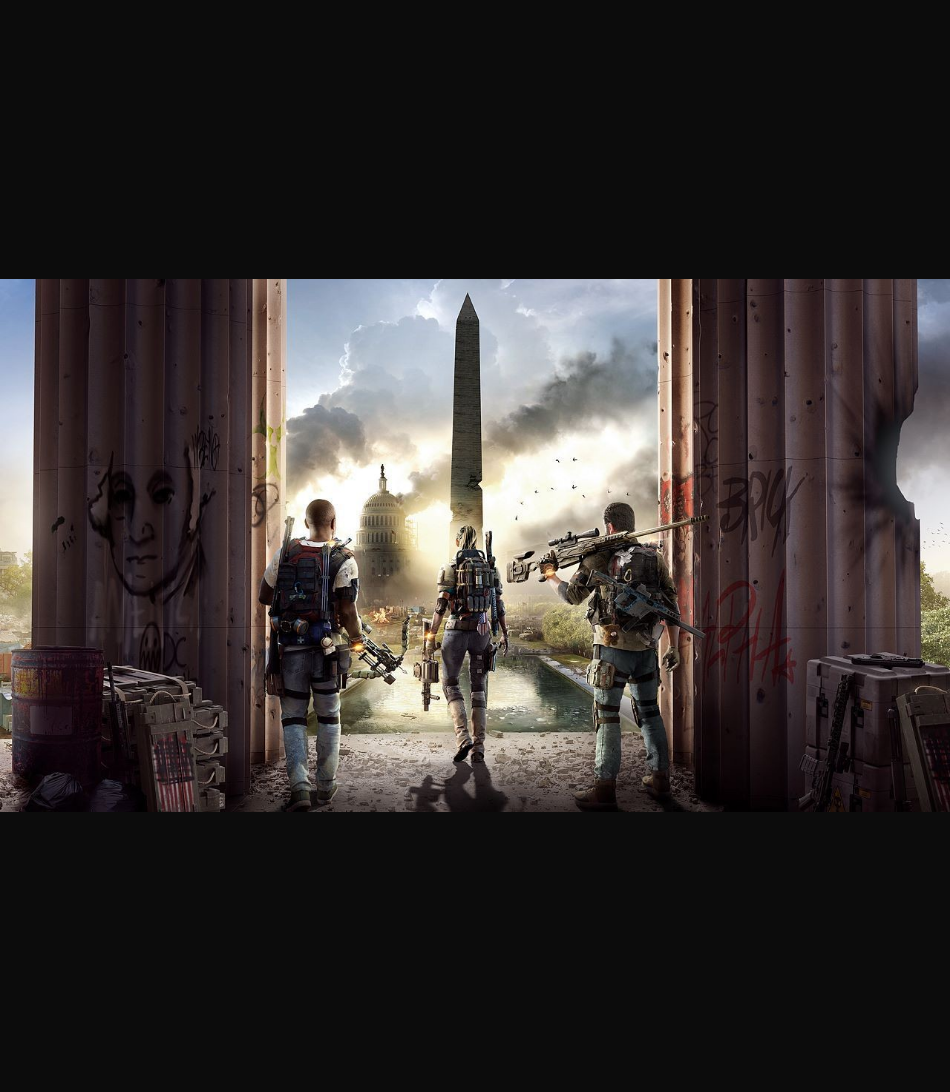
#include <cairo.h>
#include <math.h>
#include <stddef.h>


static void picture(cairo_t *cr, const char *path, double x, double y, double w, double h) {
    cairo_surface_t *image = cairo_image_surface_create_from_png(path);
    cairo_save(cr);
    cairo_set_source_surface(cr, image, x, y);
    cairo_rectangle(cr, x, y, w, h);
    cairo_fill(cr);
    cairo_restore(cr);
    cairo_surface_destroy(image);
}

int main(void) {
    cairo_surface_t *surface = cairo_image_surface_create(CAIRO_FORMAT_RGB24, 950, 1092);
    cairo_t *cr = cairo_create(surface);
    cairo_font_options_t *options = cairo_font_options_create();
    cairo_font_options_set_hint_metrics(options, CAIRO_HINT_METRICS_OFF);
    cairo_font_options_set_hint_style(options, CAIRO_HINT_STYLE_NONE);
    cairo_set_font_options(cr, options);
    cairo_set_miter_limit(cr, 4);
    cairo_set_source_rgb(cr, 0.047, 0.047, 0.047);
    cairo_paint(cr);
    picture(cr, "img1.png", 0, 279, 950, 533);
    cairo_surface_write_to_png(surface, "page.png");
    cairo_font_options_destroy(options);
    cairo_destroy(cr);
    cairo_surface_destroy(surface);
    return 0;
}
